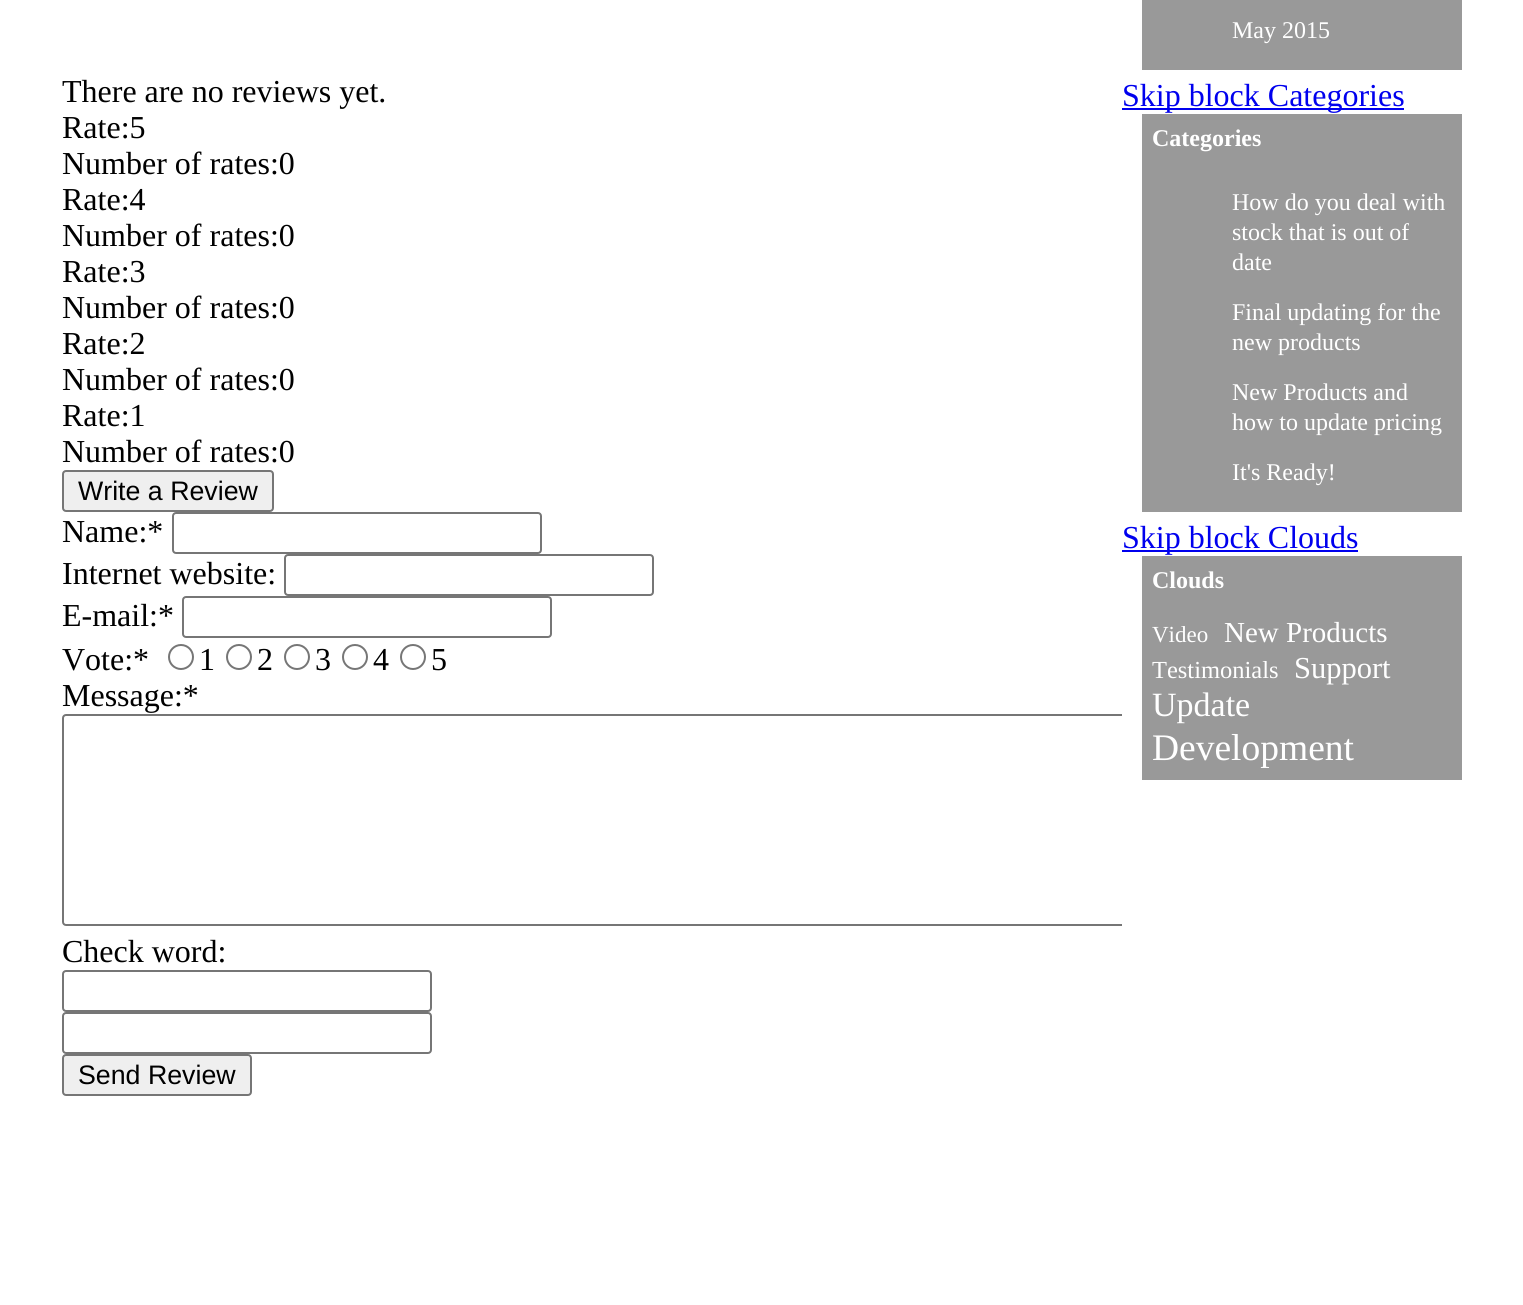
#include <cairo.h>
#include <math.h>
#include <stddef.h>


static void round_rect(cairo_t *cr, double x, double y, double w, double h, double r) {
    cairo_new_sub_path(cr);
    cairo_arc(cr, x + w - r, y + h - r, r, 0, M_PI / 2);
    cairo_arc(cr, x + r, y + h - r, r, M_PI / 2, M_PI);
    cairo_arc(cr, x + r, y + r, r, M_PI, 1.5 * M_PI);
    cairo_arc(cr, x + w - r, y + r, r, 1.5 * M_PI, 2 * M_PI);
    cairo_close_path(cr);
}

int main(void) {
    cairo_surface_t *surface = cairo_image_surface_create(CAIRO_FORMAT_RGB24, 1523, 1305);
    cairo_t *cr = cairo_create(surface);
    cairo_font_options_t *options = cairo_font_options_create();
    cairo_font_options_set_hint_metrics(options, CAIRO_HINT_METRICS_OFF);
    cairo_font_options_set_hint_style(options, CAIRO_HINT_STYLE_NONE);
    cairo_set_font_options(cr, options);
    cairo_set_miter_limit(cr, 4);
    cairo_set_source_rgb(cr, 1, 1, 1);
    cairo_paint(cr);
    cairo_select_font_face(cr, "Liberation Serif", CAIRO_FONT_SLANT_NORMAL, CAIRO_FONT_WEIGHT_NORMAL);
    cairo_set_font_size(cr, 32);
    cairo_set_source_rgb(cr, 0, 0, 0);
    cairo_move_to(cr, 62, 102);
    cairo_show_text(cr, "There are no reviews yet.");
    cairo_move_to(cr, 62, 138);
    cairo_show_text(cr, "Rate:5");
    cairo_move_to(cr, 62, 174);
    cairo_show_text(cr, "Number of rates:0");
    cairo_move_to(cr, 62, 210);
    cairo_show_text(cr, "Rate:4");
    cairo_move_to(cr, 62, 246);
    cairo_show_text(cr, "Number of rates:0");
    cairo_move_to(cr, 62, 282);
    cairo_show_text(cr, "Rate:3");
    cairo_move_to(cr, 62, 318);
    cairo_show_text(cr, "Number of rates:0");
    cairo_move_to(cr, 62, 354);
    cairo_show_text(cr, "Rate:2");
    cairo_move_to(cr, 62, 390);
    cairo_show_text(cr, "Number of rates:0");
    cairo_move_to(cr, 62, 426);
    cairo_show_text(cr, "Rate:1");
    cairo_move_to(cr, 62, 462);
    cairo_show_text(cr, "Number of rates:0");
    cairo_set_source_rgb(cr, 0.937, 0.937, 0.937);
    round_rect(cr, 63, 471, 210, 40, 3);
    cairo_fill_preserve(cr);
    cairo_set_source_rgb(cr, 0.463, 0.463, 0.463);
    cairo_stroke(cr);
    cairo_select_font_face(cr, "Liberation Sans", CAIRO_FONT_SLANT_NORMAL, CAIRO_FONT_WEIGHT_NORMAL);
    cairo_set_font_size(cr, 26.75);
    cairo_set_source_rgb(cr, 0, 0, 0);
    cairo_move_to(cr, 78, 500);
    cairo_show_text(cr, "Write a Review");
    cairo_select_font_face(cr, "Liberation Serif", CAIRO_FONT_SLANT_NORMAL, CAIRO_FONT_WEIGHT_NORMAL);
    cairo_set_font_size(cr, 32);
    cairo_move_to(cr, 62, 542);
    cairo_show_text(cr, "Name:*");
    round_rect(cr, 173, 513, 368, 40, 3);
    cairo_set_source_rgb(cr, 0.463, 0.463, 0.463);
    cairo_stroke(cr);
    cairo_set_source_rgb(cr, 0, 0, 0);
    cairo_move_to(cr, 62, 584);
    cairo_show_text(cr, "Internet website:");
    round_rect(cr, 285, 555, 368, 40, 3);
    cairo_set_source_rgb(cr, 0.463, 0.463, 0.463);
    cairo_stroke(cr);
    cairo_set_source_rgb(cr, 0, 0, 0);
    cairo_move_to(cr, 62, 626);
    cairo_show_text(cr, "E-mail:*");
    round_rect(cr, 183, 597, 368, 40, 3);
    cairo_set_source_rgb(cr, 0.463, 0.463, 0.463);
    cairo_stroke(cr);
    cairo_set_source_rgb(cr, 0, 0, 0);
    cairo_move_to(cr, 62, 670);
    cairo_show_text(cr, "Vote:*");
    cairo_new_path(cr);
    cairo_arc(cr, 181, 657, 12, 0, 2 * M_PI);
    cairo_set_source_rgb(cr, 0.463, 0.463, 0.463);
    cairo_stroke(cr);
    cairo_set_source_rgb(cr, 0, 0, 0);
    cairo_move_to(cr, 199, 670);
    cairo_show_text(cr, "1");
    cairo_new_path(cr);
    cairo_arc(cr, 239, 657, 12, 0, 2 * M_PI);
    cairo_set_source_rgb(cr, 0.463, 0.463, 0.463);
    cairo_stroke(cr);
    cairo_set_source_rgb(cr, 0, 0, 0);
    cairo_move_to(cr, 257, 670);
    cairo_show_text(cr, "2");
    cairo_new_path(cr);
    cairo_arc(cr, 297, 657, 12, 0, 2 * M_PI);
    cairo_set_source_rgb(cr, 0.463, 0.463, 0.463);
    cairo_stroke(cr);
    cairo_set_source_rgb(cr, 0, 0, 0);
    cairo_move_to(cr, 315, 670);
    cairo_show_text(cr, "3");
    cairo_new_path(cr);
    cairo_arc(cr, 355, 657, 12, 0, 2 * M_PI);
    cairo_set_source_rgb(cr, 0.463, 0.463, 0.463);
    cairo_stroke(cr);
    cairo_set_source_rgb(cr, 0, 0, 0);
    cairo_move_to(cr, 373, 670);
    cairo_show_text(cr, "4");
    cairo_new_path(cr);
    cairo_arc(cr, 413, 657, 12, 0, 2 * M_PI);
    cairo_set_source_rgb(cr, 0.463, 0.463, 0.463);
    cairo_stroke(cr);
    cairo_set_source_rgb(cr, 0, 0, 0);
    cairo_move_to(cr, 431, 670);
    cairo_show_text(cr, "5");
    cairo_move_to(cr, 62, 706);
    cairo_show_text(cr, "Message:*");
    cairo_save(cr);
    cairo_rectangle(cr, 62, 0, 1060, 1096);
    cairo_clip(cr);
    round_rect(cr, 63, 715, 1070, 210, 3);
    cairo_set_source_rgb(cr, 0.463, 0.463, 0.463);
    cairo_stroke(cr);
    cairo_restore(cr);
    cairo_move_to(cr, 62, 962);
    cairo_show_text(cr, "Check word:");
    round_rect(cr, 63, 971, 368, 40, 3);
    cairo_set_source_rgb(cr, 0.463, 0.463, 0.463);
    cairo_stroke(cr);
    round_rect(cr, 63, 1013, 368, 40, 3);
    cairo_stroke(cr);
    cairo_set_source_rgb(cr, 0.937, 0.937, 0.937);
    round_rect(cr, 63, 1055, 188, 40, 3);
    cairo_fill_preserve(cr);
    cairo_set_source_rgb(cr, 0.463, 0.463, 0.463);
    cairo_stroke(cr);
    cairo_select_font_face(cr, "Liberation Sans", CAIRO_FONT_SLANT_NORMAL, CAIRO_FONT_WEIGHT_NORMAL);
    cairo_set_font_size(cr, 26.75);
    cairo_set_source_rgb(cr, 0, 0, 0);
    cairo_move_to(cr, 78, 1084);
    cairo_show_text(cr, "Send Review");
    cairo_set_source_rgb(cr, 0.6, 0.6, 0.6);
    cairo_rectangle(cr, 1142, 0, 320, 70);
    cairo_fill(cr);
    cairo_select_font_face(cr, "Liberation Serif", CAIRO_FONT_SLANT_NORMAL, CAIRO_FONT_WEIGHT_NORMAL);
    cairo_set_font_size(cr, 24);
    cairo_set_source_rgb(cr, 1, 1, 1);
    cairo_move_to(cr, 1232, 38);
    cairo_show_text(cr, "May 2015");
    cairo_set_source_rgb(cr, 0, 0, 0.933);
    cairo_rectangle(cr, 1122, 108, 282, 2);
    cairo_fill(cr);
    cairo_set_font_size(cr, 32);
    cairo_move_to(cr, 1122, 106);
    cairo_show_text(cr, "Skip block Categories");
    cairo_set_source_rgb(cr, 0.6, 0.6, 0.6);
    cairo_rectangle(cr, 1142, 114, 320, 398);
    cairo_fill(cr);
    cairo_select_font_face(cr, "Liberation Serif", CAIRO_FONT_SLANT_NORMAL, CAIRO_FONT_WEIGHT_BOLD);
    cairo_set_font_size(cr, 24);
    cairo_set_source_rgb(cr, 1, 1, 1);
    cairo_move_to(cr, 1152, 146);
    cairo_show_text(cr, "Categories");
    cairo_select_font_face(cr, "Liberation Serif", CAIRO_FONT_SLANT_NORMAL, CAIRO_FONT_WEIGHT_NORMAL);
    cairo_move_to(cr, 1232, 210);
    cairo_show_text(cr, "How do you deal with");
    cairo_move_to(cr, 1232, 240);
    cairo_show_text(cr, "stock that is out of");
    cairo_move_to(cr, 1232, 270);
    cairo_show_text(cr, "date");
    cairo_move_to(cr, 1232, 320);
    cairo_show_text(cr, "Final updating for the");
    cairo_move_to(cr, 1232, 350);
    cairo_show_text(cr, "new products");
    cairo_move_to(cr, 1232, 400);
    cairo_show_text(cr, "New Products and");
    cairo_move_to(cr, 1232, 430);
    cairo_show_text(cr, "how to update pricing");
    cairo_move_to(cr, 1232, 480);
    cairo_show_text(cr, "It's Ready!");
    cairo_set_source_rgb(cr, 0, 0, 0.933);
    cairo_rectangle(cr, 1122, 550, 236, 2);
    cairo_fill(cr);
    cairo_set_font_size(cr, 32);
    cairo_move_to(cr, 1122, 548);
    cairo_show_text(cr, "Skip block Clouds");
    cairo_set_source_rgb(cr, 0.6, 0.6, 0.6);
    cairo_rectangle(cr, 1142, 556, 320, 224);
    cairo_fill(cr);
    cairo_select_font_face(cr, "Liberation Serif", CAIRO_FONT_SLANT_NORMAL, CAIRO_FONT_WEIGHT_BOLD);
    cairo_set_font_size(cr, 24);
    cairo_set_source_rgb(cr, 1, 1, 1);
    cairo_move_to(cr, 1152, 588);
    cairo_show_text(cr, "Clouds");
    cairo_select_font_face(cr, "Liberation Serif", CAIRO_FONT_SLANT_NORMAL, CAIRO_FONT_WEIGHT_NORMAL);
    cairo_set_font_size(cr, 23);
    cairo_move_to(cr, 1152, 642);
    cairo_show_text(cr, "Video");
    cairo_set_font_size(cr, 29);
    cairo_move_to(cr, 1224, 642);
    cairo_show_text(cr, "New Products");
    cairo_set_font_size(cr, 24.5);
    cairo_move_to(cr, 1152, 678);
    cairo_show_text(cr, "Testimonials");
    cairo_set_font_size(cr, 30.5);
    cairo_move_to(cr, 1294, 678);
    cairo_show_text(cr, "Support");
    cairo_set_font_size(cr, 34);
    cairo_move_to(cr, 1152, 716);
    cairo_show_text(cr, "Update");
    cairo_set_font_size(cr, 37.5);
    cairo_move_to(cr, 1152, 760);
    cairo_show_text(cr, "Development");
    cairo_surface_write_to_png(surface, "page.png");
    cairo_font_options_destroy(options);
    cairo_destroy(cr);
    cairo_surface_destroy(surface);
    return 0;
}
